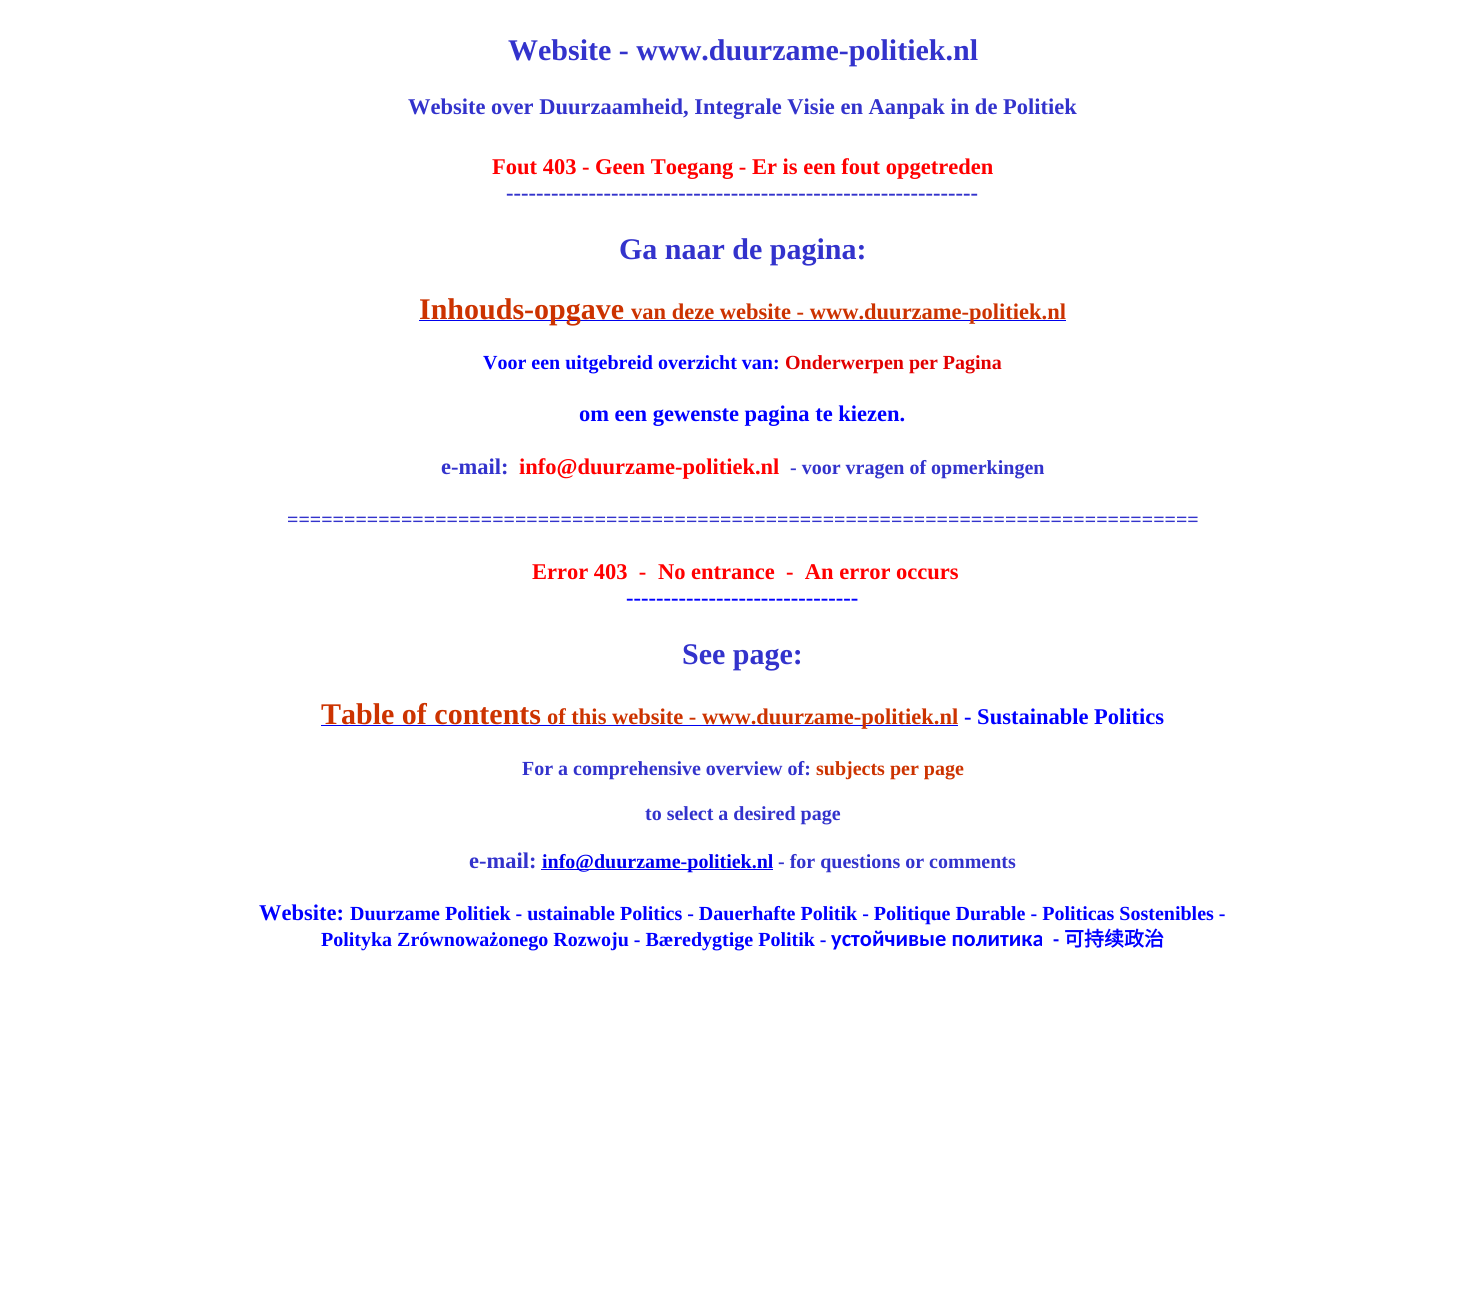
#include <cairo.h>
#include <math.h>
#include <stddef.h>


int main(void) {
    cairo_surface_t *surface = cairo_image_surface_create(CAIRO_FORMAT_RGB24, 1484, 1299);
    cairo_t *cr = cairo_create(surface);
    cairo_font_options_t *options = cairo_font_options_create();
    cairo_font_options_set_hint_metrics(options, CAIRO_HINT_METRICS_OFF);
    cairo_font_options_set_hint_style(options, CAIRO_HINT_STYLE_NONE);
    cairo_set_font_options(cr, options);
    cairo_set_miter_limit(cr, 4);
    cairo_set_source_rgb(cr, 1, 1, 1);
    cairo_paint(cr);
    cairo_select_font_face(cr, "Liberation Serif", CAIRO_FONT_SLANT_NORMAL, CAIRO_FONT_WEIGHT_BOLD);
    cairo_set_font_size(cr, 30);
    cairo_set_source_rgb(cr, 0.2, 0.2, 0.8);
    cairo_move_to(cr, 508, 60);
    cairo_show_text(cr, "Website - www.duurzame-politiek.nl");
    cairo_set_font_size(cr, 22.5);
    cairo_move_to(cr, 408, 114);
    cairo_show_text(cr, "Website over Duurzaamheid, Integrale Visie en Aanpak in de Politiek");
    cairo_set_source_rgb(cr, 1, 0, 0);
    cairo_move_to(cr, 492, 174);
    cairo_show_text(cr, "Fout 403 - Geen Toegang - Er is een fout opgetreden");
    cairo_set_source_rgb(cr, 0.2, 0.2, 0.8);
    cairo_move_to(cr, 506, 200);
    cairo_show_text(cr, "---------------------------------------------------------------");
    cairo_set_font_size(cr, 30);
    cairo_move_to(cr, 619, 259);
    cairo_show_text(cr, "Ga naar de pagina:");
    cairo_set_source_rgb(cr, 0, 0, 0.933);
    cairo_rectangle(cr, 419, 320, 647, 1);
    cairo_fill(cr);
    cairo_set_source_rgb(cr, 0.8, 0.2, 0);
    cairo_move_to(cr, 419, 319);
    cairo_show_text(cr, "Inhouds-opgave");
    cairo_set_font_size(cr, 22.5);
    cairo_move_to(cr, 631, 319);
    cairo_show_text(cr, "van deze website - www.duurzame-politiek.nl");
    cairo_set_font_size(cr, 20);
    cairo_set_source_rgb(cr, 0, 0, 1);
    cairo_move_to(cr, 483, 369);
    cairo_show_text(cr, "Voor een uitgebreid overzicht van:");
    cairo_set_source_rgb(cr, 0.882, 0, 0);
    cairo_move_to(cr, 785, 369);
    cairo_show_text(cr, "Onderwerpen per Pagina");
    cairo_set_font_size(cr, 22.5);
    cairo_set_source_rgb(cr, 0, 0, 1);
    cairo_move_to(cr, 579, 421);
    cairo_show_text(cr, "om een gewenste pagina te kiezen.");
    cairo_set_source_rgb(cr, 0.2, 0.2, 0.8);
    cairo_move_to(cr, 441, 474);
    cairo_show_text(cr, "e-mail:");
    cairo_set_source_rgb(cr, 1, 0, 0);
    cairo_move_to(cr, 519, 474);
    cairo_show_text(cr, "info@duurzame-politiek.nl");
    cairo_set_font_size(cr, 20);
    cairo_set_source_rgb(cr, 0.2, 0.2, 0.8);
    cairo_move_to(cr, 790, 474);
    cairo_show_text(cr, "- voor vragen of opmerkingen");
    cairo_move_to(cr, 287, 526);
    cairo_show_text(cr, "================================================================================");
    cairo_set_font_size(cr, 22.5);
    cairo_set_source_rgb(cr, 1, 0, 0);
    cairo_move_to(cr, 532, 579);
    cairo_show_text(cr, "Error 403  -");
    cairo_move_to(cr, 658, 579);
    cairo_show_text(cr, "No entrance  -  An error occurs");
    cairo_set_source_rgb(cr, 0, 0, 1);
    cairo_move_to(cr, 626, 605);
    cairo_show_text(cr, "-------------------------------");
    cairo_set_font_size(cr, 30);
    cairo_set_source_rgb(cr, 0.2, 0.2, 0.8);
    cairo_move_to(cr, 682, 664);
    cairo_show_text(cr, "See page:");
    cairo_set_source_rgb(cr, 0.8, 0.2, 0);
    cairo_move_to(cr, 321, 724);
    cairo_show_text(cr, "Table of contents");
    cairo_set_source_rgb(cr, 0, 0, 0.933);
    cairo_rectangle(cr, 321, 725, 637, 1);
    cairo_fill(cr);
    cairo_set_font_size(cr, 22.5);
    cairo_set_source_rgb(cr, 0.8, 0.2, 0);
    cairo_move_to(cr, 547, 724);
    cairo_show_text(cr, "of this website - www.duurzame-politiek.nl");
    cairo_set_source_rgb(cr, 0, 0, 1);
    cairo_move_to(cr, 964, 724);
    cairo_show_text(cr, "- Sustainable Politics");
    cairo_set_font_size(cr, 20);
    cairo_set_source_rgb(cr, 0.2, 0.2, 0.8);
    cairo_move_to(cr, 522, 775);
    cairo_show_text(cr, "For a comprehensive overview of:");
    cairo_set_source_rgb(cr, 0.8, 0.2, 0);
    cairo_move_to(cr, 816, 775);
    cairo_show_text(cr, "subjects per page");
    cairo_set_source_rgb(cr, 0.2, 0.2, 0.8);
    cairo_move_to(cr, 645, 820);
    cairo_show_text(cr, "to select a desired page");
    cairo_set_font_size(cr, 22.5);
    cairo_move_to(cr, 469, 868);
    cairo_show_text(cr, "e-mail:");
    cairo_set_source_rgb(cr, 0, 0, 0.933);
    cairo_rectangle(cr, 541, 869, 232, 1);
    cairo_fill(cr);
    cairo_set_font_size(cr, 20);
    cairo_move_to(cr, 542, 868);
    cairo_show_text(cr, "info@duurzame-politiek.nl");
    cairo_set_source_rgb(cr, 0.2, 0.2, 0.8);
    cairo_move_to(cr, 778, 868);
    cairo_show_text(cr, "- for questions or comments");
    cairo_set_font_size(cr, 22.5);
    cairo_set_source_rgb(cr, 0, 0, 1);
    cairo_move_to(cr, 259, 920);
    cairo_show_text(cr, "Website:");
    cairo_set_font_size(cr, 20);
    cairo_move_to(cr, 350, 920);
    cairo_show_text(cr, "Duurzame Politiek - ustainable Politics - Dauerhafte Politik - Politique Durable - Politicas Sostenibles -");
    cairo_move_to(cr, 321, 946);
    cairo_show_text(cr, "Polityka Zrównoważonego Rozwoju - Bæredygtige Politik -");
    cairo_select_font_face(cr, "Carlito", CAIRO_FONT_SLANT_NORMAL, CAIRO_FONT_WEIGHT_BOLD);
    cairo_set_font_size(cr, 22.5);
    cairo_move_to(cr, 831, 946);
    cairo_show_text(cr, "устойчивые политика");
    cairo_set_font_size(cr, 20);
    cairo_move_to(cr, 1053, 946);
    cairo_show_text(cr, "-");
    cairo_select_font_face(cr, "Noto Sans CJK SC", CAIRO_FONT_SLANT_NORMAL, CAIRO_FONT_WEIGHT_BOLD);
    cairo_move_to(cr, 1064, 946);
    cairo_show_text(cr, "可持续政治");
    cairo_surface_write_to_png(surface, "page.png");
    cairo_font_options_destroy(options);
    cairo_destroy(cr);
    cairo_surface_destroy(surface);
    return 0;
}
